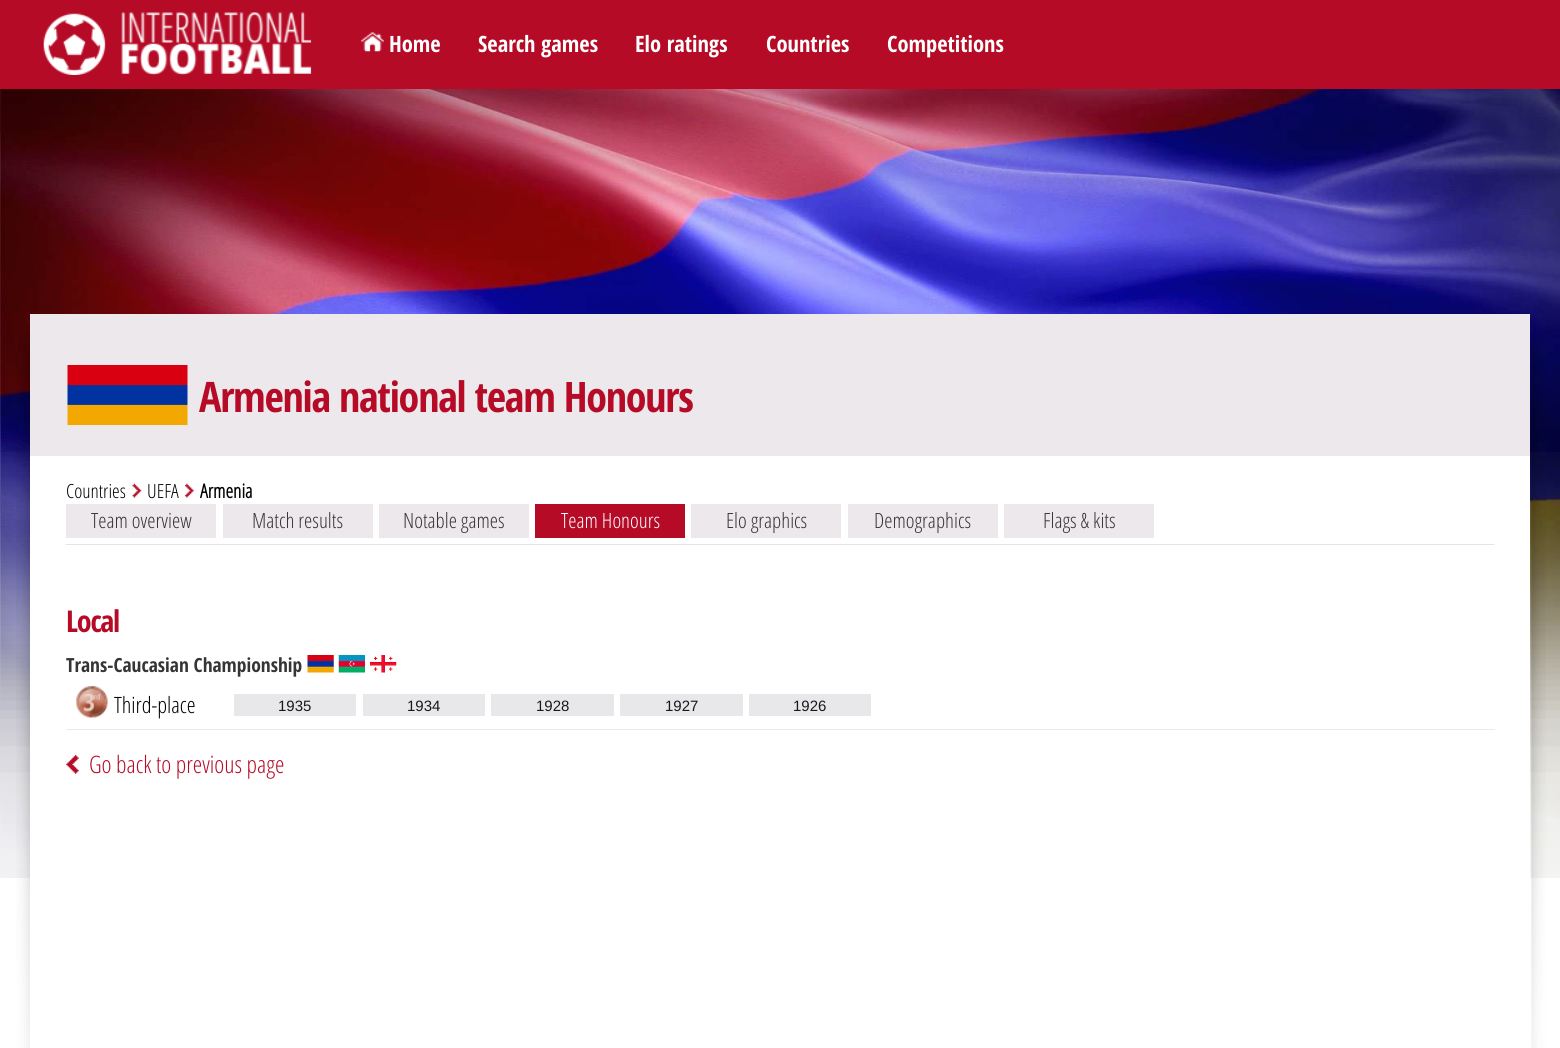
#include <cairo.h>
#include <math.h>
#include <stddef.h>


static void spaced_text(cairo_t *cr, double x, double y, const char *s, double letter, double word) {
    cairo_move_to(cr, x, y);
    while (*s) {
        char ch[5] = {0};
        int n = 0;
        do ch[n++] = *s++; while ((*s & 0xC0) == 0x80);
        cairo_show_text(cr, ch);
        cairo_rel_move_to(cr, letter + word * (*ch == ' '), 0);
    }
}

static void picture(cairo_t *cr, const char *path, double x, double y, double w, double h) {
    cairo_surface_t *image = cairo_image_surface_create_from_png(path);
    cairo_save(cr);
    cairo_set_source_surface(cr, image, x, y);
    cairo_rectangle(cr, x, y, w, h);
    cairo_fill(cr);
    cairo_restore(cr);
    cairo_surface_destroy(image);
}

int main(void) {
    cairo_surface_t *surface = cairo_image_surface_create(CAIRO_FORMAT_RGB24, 1560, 1048);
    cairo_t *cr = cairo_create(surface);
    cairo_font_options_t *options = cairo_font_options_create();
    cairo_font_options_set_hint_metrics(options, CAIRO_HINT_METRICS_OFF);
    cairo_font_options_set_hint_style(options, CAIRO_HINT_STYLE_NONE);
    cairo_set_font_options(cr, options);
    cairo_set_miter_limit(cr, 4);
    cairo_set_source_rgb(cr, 1, 1, 1);
    cairo_paint(cr);
    cairo_set_source_rgb(cr, 0.71, 0.043, 0.153);
    cairo_rectangle(cr, 0, 0, 1560, 89);
    cairo_fill(cr);
    picture(cr, "img1.png", 43, 12, 269, 63);
    picture(cr, "img2.png", 361, 32, 23, 20);
    cairo_select_font_face(cr, "Open Sans Condensed", CAIRO_FONT_SLANT_NORMAL, CAIRO_FONT_WEIGHT_BOLD);
    cairo_set_font_size(cr, 22.5);
    cairo_set_source_rgb(cr, 1, 1, 1);
    cairo_move_to(cr, 389, 52);
    cairo_show_text(cr, "Home");
    cairo_move_to(cr, 478, 52);
    cairo_show_text(cr, "Search games");
    cairo_move_to(cr, 635, 52);
    cairo_show_text(cr, "Elo ratings");
    cairo_move_to(cr, 766, 52);
    cairo_show_text(cr, "Countries");
    cairo_move_to(cr, 887, 52);
    cairo_show_text(cr, "Competitions");
    picture(cr, "img13.png", 0, 89, 1560, 789);
    picture(cr, "img14.png", 0, 452, 1560, 426);
    picture(cr, "img3.png", 16, 331, 14, 717);
    cairo_rectangle(cr, 30, 456, 1500, 422);
    cairo_fill(cr);
    cairo_set_source_rgb(cr, 0.922, 0.91, 0.918);
    cairo_rectangle(cr, 30, 314, 1500, 142);
    cairo_fill(cr);
    picture(cr, "img4.png", 67, 365, 121, 60);
    cairo_set_font_size(cr, 42);
    cairo_set_source_rgb(cr, 0.71, 0.043, 0.153);
    spaced_text(cr, 199, 412, "Armenia national team Honours", -1.25, 0);
    cairo_select_font_face(cr, "Open Sans Light", CAIRO_FONT_SLANT_NORMAL, CAIRO_FONT_WEIGHT_NORMAL);
    cairo_set_font_size(cr, 19.5);
    cairo_set_source_rgb(cr, 0, 0, 0);
    cairo_move_to(cr, 66, 498);
    cairo_show_text(cr, "Countries");
    picture(cr, "img5.png", 132, 483, 10, 15);
    cairo_move_to(cr, 147, 498);
    cairo_show_text(cr, "UEFA");
    picture(cr, "img6.png", 185, 483, 9, 15);
    cairo_select_font_face(cr, "Open Sans", CAIRO_FONT_SLANT_NORMAL, CAIRO_FONT_WEIGHT_BOLD);
    cairo_move_to(cr, 200, 498);
    cairo_show_text(cr, "Armenia");
    cairo_set_source_rgb(cr, 0.922, 0.91, 0.918);
    cairo_rectangle(cr, 66, 504, 150, 34);
    cairo_fill(cr);
    cairo_select_font_face(cr, "Open Sans Light", CAIRO_FONT_SLANT_NORMAL, CAIRO_FONT_WEIGHT_NORMAL);
    cairo_set_font_size(cr, 21);
    cairo_set_source_rgb(cr, 0.208, 0.208, 0.208);
    cairo_move_to(cr, 91, 528);
    cairo_show_text(cr, "Team overview");
    cairo_set_source_rgb(cr, 0.922, 0.91, 0.918);
    cairo_rectangle(cr, 223, 504, 150, 34);
    cairo_fill(cr);
    cairo_set_source_rgb(cr, 0.208, 0.208, 0.208);
    cairo_move_to(cr, 252, 528);
    cairo_show_text(cr, "Match results");
    cairo_set_source_rgb(cr, 0.922, 0.91, 0.918);
    cairo_rectangle(cr, 379, 504, 150, 34);
    cairo_fill(cr);
    cairo_set_source_rgb(cr, 0.208, 0.208, 0.208);
    cairo_move_to(cr, 403, 528);
    cairo_show_text(cr, "Notable games");
    cairo_set_source_rgb(cr, 0.71, 0.043, 0.153);
    cairo_rectangle(cr, 535, 504, 150, 34);
    cairo_fill(cr);
    cairo_set_source_rgb(cr, 1, 1, 1);
    cairo_move_to(cr, 561, 528);
    cairo_show_text(cr, "Team Honours");
    cairo_set_source_rgb(cr, 0.922, 0.91, 0.918);
    cairo_rectangle(cr, 691, 504, 150, 34);
    cairo_fill(cr);
    cairo_set_source_rgb(cr, 0.208, 0.208, 0.208);
    cairo_move_to(cr, 726, 528);
    cairo_show_text(cr, "Elo graphics");
    cairo_set_source_rgb(cr, 0.922, 0.91, 0.918);
    cairo_rectangle(cr, 848, 504, 150, 34);
    cairo_fill(cr);
    cairo_set_source_rgb(cr, 0.208, 0.208, 0.208);
    cairo_move_to(cr, 874, 528);
    cairo_show_text(cr, "Demographics");
    cairo_set_source_rgb(cr, 0.922, 0.91, 0.918);
    cairo_rectangle(cr, 1004, 504, 150, 34);
    cairo_fill(cr);
    cairo_set_source_rgb(cr, 0.208, 0.208, 0.208);
    cairo_move_to(cr, 1043, 528);
    cairo_show_text(cr, "Flags & kits");
    cairo_set_source_rgb(cr, 0.894, 0.894, 0.894);
    cairo_rectangle(cr, 66, 544, 1428, 1);
    cairo_fill(cr);
    cairo_select_font_face(cr, "Open Sans Condensed", CAIRO_FONT_SLANT_NORMAL, CAIRO_FONT_WEIGHT_BOLD);
    cairo_set_font_size(cr, 30);
    cairo_set_source_rgb(cr, 0.71, 0.043, 0.153);
    spaced_text(cr, 66, 632, "Local", -1.25, 0);
    cairo_set_font_size(cr, 19.5);
    cairo_set_source_rgb(cr, 0.208, 0.208, 0.208);
    cairo_move_to(cr, 66, 672);
    cairo_show_text(cr, "Trans-Caucasian Championship");
    picture(cr, "img7.png", 307, 655, 27, 18);
    picture(cr, "img8.png", 338, 655, 27, 18);
    picture(cr, "img9.png", 370, 655, 27, 18);
    picture(cr, "img10.png", 76, 686, 32, 32);
    cairo_select_font_face(cr, "Open Sans Light", CAIRO_FONT_SLANT_NORMAL, CAIRO_FONT_WEIGHT_NORMAL);
    cairo_set_font_size(cr, 22.5);
    cairo_set_source_rgb(cr, 0, 0, 0);
    cairo_move_to(cr, 114, 713);
    cairo_show_text(cr, "Third-place");
    cairo_set_source_rgb(cr, 0.922, 0.91, 0.918);
    cairo_rectangle(cr, 66, 729, 1429, 1);
    cairo_fill(cr);
    cairo_set_source_rgb(cr, 0.91, 0.91, 0.918);
    cairo_rectangle(cr, 234, 694, 122, 22);
    cairo_fill(cr);
    cairo_select_font_face(cr, "Liberation Sans", CAIRO_FONT_SLANT_NORMAL, CAIRO_FONT_WEIGHT_NORMAL);
    cairo_set_font_size(cr, 15);
    cairo_set_source_rgb(cr, 0.102, 0.09, 0.106);
    cairo_move_to(cr, 278, 711);
    cairo_show_text(cr, "1935");
    cairo_set_source_rgb(cr, 0.91, 0.91, 0.918);
    cairo_rectangle(cr, 363, 694, 122, 22);
    cairo_fill(cr);
    cairo_set_source_rgb(cr, 0.102, 0.09, 0.106);
    cairo_move_to(cr, 407, 711);
    cairo_show_text(cr, "1934");
    cairo_set_source_rgb(cr, 0.91, 0.91, 0.918);
    cairo_rectangle(cr, 491, 694, 123, 22);
    cairo_fill(cr);
    cairo_set_source_rgb(cr, 0.102, 0.09, 0.106);
    cairo_move_to(cr, 536, 711);
    cairo_show_text(cr, "1928");
    cairo_set_source_rgb(cr, 0.91, 0.91, 0.918);
    cairo_rectangle(cr, 620, 694, 123, 22);
    cairo_fill(cr);
    cairo_set_source_rgb(cr, 0.102, 0.09, 0.106);
    cairo_move_to(cr, 665, 711);
    cairo_show_text(cr, "1927");
    cairo_set_source_rgb(cr, 0.91, 0.91, 0.918);
    cairo_rectangle(cr, 749, 694, 122, 22);
    cairo_fill(cr);
    cairo_set_source_rgb(cr, 0.102, 0.09, 0.106);
    cairo_move_to(cr, 793, 711);
    cairo_show_text(cr, "1926");
    picture(cr, "img11.png", 66, 755, 13, 19);
    cairo_select_font_face(cr, "Open Sans Light", CAIRO_FONT_SLANT_NORMAL, CAIRO_FONT_WEIGHT_NORMAL);
    cairo_set_font_size(cr, 24);
    cairo_set_source_rgb(cr, 0.71, 0.043, 0.153);
    cairo_move_to(cr, 89, 773);
    cairo_show_text(cr, "Go back to previous page");
    picture(cr, "img12.png", 1531, 330, 15, 718);
    cairo_surface_write_to_png(surface, "page.png");
    cairo_font_options_destroy(options);
    cairo_destroy(cr);
    cairo_surface_destroy(surface);
    return 0;
}
